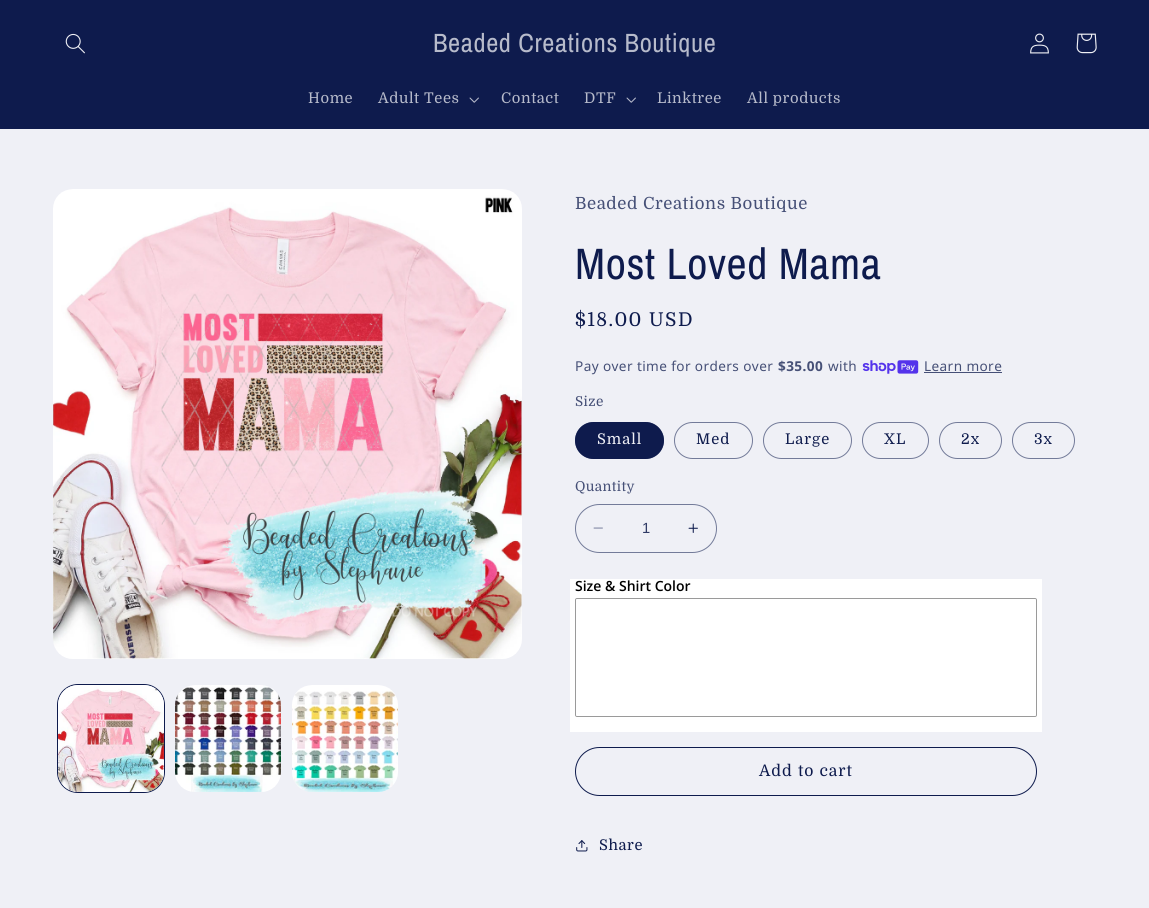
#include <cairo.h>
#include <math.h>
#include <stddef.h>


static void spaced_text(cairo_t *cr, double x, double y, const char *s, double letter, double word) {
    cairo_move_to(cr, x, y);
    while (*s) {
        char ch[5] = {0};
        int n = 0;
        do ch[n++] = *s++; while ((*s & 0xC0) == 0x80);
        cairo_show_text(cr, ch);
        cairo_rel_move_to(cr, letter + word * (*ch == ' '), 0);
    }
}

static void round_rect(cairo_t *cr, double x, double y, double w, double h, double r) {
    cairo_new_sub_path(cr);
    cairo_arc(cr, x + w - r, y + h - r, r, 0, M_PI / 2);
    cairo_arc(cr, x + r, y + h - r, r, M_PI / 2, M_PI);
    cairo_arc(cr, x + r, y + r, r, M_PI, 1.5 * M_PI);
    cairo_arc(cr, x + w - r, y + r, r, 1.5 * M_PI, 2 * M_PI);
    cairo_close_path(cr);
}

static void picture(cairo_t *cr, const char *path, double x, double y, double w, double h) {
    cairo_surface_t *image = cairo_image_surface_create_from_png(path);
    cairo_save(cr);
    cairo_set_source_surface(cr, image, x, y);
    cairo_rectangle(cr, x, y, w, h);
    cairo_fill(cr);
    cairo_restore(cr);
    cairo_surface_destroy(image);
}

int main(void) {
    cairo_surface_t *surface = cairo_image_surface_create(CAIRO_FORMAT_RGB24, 1149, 908);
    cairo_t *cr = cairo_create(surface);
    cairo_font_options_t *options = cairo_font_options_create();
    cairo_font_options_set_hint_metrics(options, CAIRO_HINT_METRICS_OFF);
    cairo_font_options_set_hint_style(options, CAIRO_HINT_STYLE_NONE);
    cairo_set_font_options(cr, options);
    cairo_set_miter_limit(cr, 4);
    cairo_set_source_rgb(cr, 0.937, 0.941, 0.961);
    cairo_paint(cr);
    cairo_set_source_rgb(cr, 0.055, 0.106, 0.302);
    cairo_rectangle(cr, 0, 0, 1149, 129);
    cairo_fill(cr);
    picture(cr, "img1.png", 65, 33, 20, 21);
    cairo_select_font_face(cr, "Archivo Narrow", CAIRO_FONT_SLANT_NORMAL, CAIRO_FONT_WEIGHT_NORMAL);
    cairo_set_font_size(cr, 26.4);
    cairo_set_source_rgb(cr, 0.718, 0.733, 0.796);
    spaced_text(cr, 433, 52, "Beaded Creations Boutique", 0.65, 0);
    picture(cr, "img2.png", 1030, 33, 19, 21);
    picture(cr, "img3.png", 1076, 33, 21, 21);
    cairo_select_font_face(cr, "Domine", CAIRO_FONT_SLANT_NORMAL, CAIRO_FONT_WEIGHT_NORMAL);
    cairo_set_font_size(cr, 14.75);
    spaced_text(cr, 308, 103, "Home", 0.6, 0);
    spaced_text(cr, 378, 103, "Adult Tees", 0.6, 0);
    picture(cr, "img4.png", 469, 97, 10, 6);
    spaced_text(cr, 501, 103, "Contact", 0.6, 0);
    spaced_text(cr, 584, 103, "DTF", 0.6, 0);
    picture(cr, "img4.png", 626, 97, 10, 6);
    spaced_text(cr, 657, 103, "Linktree", 0.6, 0);
    spaced_text(cr, 747, 103, "All products", 0.6, 0);
    picture(cr, "img5.png", 53, 189, 469, 470);
    round_rect(cr, 57.5, 684.5, 107, 108, 20.5);
    cairo_set_source_rgb(cr, 0.055, 0.106, 0.302);
    cairo_set_line_width(cr, 1);
    cairo_stroke(cr);
    picture(cr, "img6.png", 58, 685, 106, 107);
    picture(cr, "img7.png", 175, 685, 106, 107);
    picture(cr, "img8.png", 292, 685, 106, 107);
    cairo_set_font_size(cr, 16.75);
    cairo_set_source_rgb(cr, 0.275, 0.314, 0.467);
    spaced_text(cr, 575, 209, "Beaded Creations Boutique", 0.6, 0);
    cairo_select_font_face(cr, "Archivo Narrow", CAIRO_FONT_SLANT_NORMAL, CAIRO_FONT_WEIGHT_NORMAL);
    cairo_set_font_size(cr, 44);
    cairo_set_source_rgb(cr, 0.055, 0.106, 0.302);
    spaced_text(cr, 575, 279, "Most Loved Mama", 0.65, 0);
    cairo_select_font_face(cr, "Domine", CAIRO_FONT_SLANT_NORMAL, CAIRO_FONT_WEIGHT_NORMAL);
    cairo_set_font_size(cr, 19);
    spaced_text(cr, 575, 326, "$18.00 USD", 1.4, 0);
    cairo_select_font_face(cr, "Noto Sans", CAIRO_FONT_SLANT_NORMAL, CAIRO_FONT_WEIGHT_NORMAL);
    cairo_set_font_size(cr, 13.6);
    cairo_set_source_rgb(cr, 0.275, 0.314, 0.467);
    spaced_text(cr, 575, 371, "Pay over time for orders over", 0.4, 0);
    cairo_select_font_face(cr, "Noto Sans", CAIRO_FONT_SLANT_NORMAL, CAIRO_FONT_WEIGHT_BOLD);
    spaced_text(cr, 778, 371, "$35.00", 0.4, 0);
    cairo_select_font_face(cr, "Noto Sans", CAIRO_FONT_SLANT_NORMAL, CAIRO_FONT_WEIGHT_NORMAL);
    spaced_text(cr, 828, 371, "with", 0.4, 0);
    picture(cr, "img9.png", 862, 360, 57, 14);
    spaced_text(cr, 924, 371, "Learn more", 0.4, 0);
    cairo_rectangle(cr, 924, 372, 78, 1);
    cairo_fill(cr);
    cairo_select_font_face(cr, "Domine", CAIRO_FONT_SLANT_NORMAL, CAIRO_FONT_WEIGHT_NORMAL);
    spaced_text(cr, 575, 406, "Size", 0.4, 0);
    cairo_set_source_rgb(cr, 0.055, 0.106, 0.302);
    round_rect(cr, 575, 422, 89, 37, 18.5);
    cairo_fill(cr);
    round_rect(cr, 575.5, 422.5, 88, 36, 18);
    cairo_set_source_rgba(cr, 0.055, 0.106, 0.302, 0.55);
    cairo_stroke(cr);
    cairo_set_font_size(cr, 14.75);
    cairo_set_source_rgb(cr, 0.937, 0.941, 0.961);
    spaced_text(cr, 597, 444, "Small", 1, 0);
    round_rect(cr, 674.5, 422.5, 78, 36, 18);
    cairo_set_source_rgb(cr, 0.451, 0.482, 0.6);
    cairo_stroke(cr);
    cairo_set_source_rgb(cr, 0.055, 0.106, 0.302);
    spaced_text(cr, 696, 444, "Med", 1, 0);
    round_rect(cr, 763.5, 422.5, 88, 36, 18);
    cairo_set_source_rgb(cr, 0.451, 0.482, 0.6);
    cairo_stroke(cr);
    cairo_set_source_rgb(cr, 0.055, 0.106, 0.302);
    spaced_text(cr, 785, 444, "Large", 1, 0);
    round_rect(cr, 862.5, 422.5, 66, 36, 18);
    cairo_set_source_rgb(cr, 0.451, 0.482, 0.6);
    cairo_stroke(cr);
    cairo_set_source_rgb(cr, 0.055, 0.106, 0.302);
    spaced_text(cr, 884, 444, "XL", 1, 0);
    round_rect(cr, 939.5, 422.5, 62, 36, 18);
    cairo_set_source_rgb(cr, 0.451, 0.482, 0.6);
    cairo_stroke(cr);
    cairo_set_source_rgb(cr, 0.055, 0.106, 0.302);
    spaced_text(cr, 961, 444, "2x", 1, 0);
    round_rect(cr, 1012.5, 422.5, 62, 36, 18);
    cairo_set_source_rgb(cr, 0.451, 0.482, 0.6);
    cairo_stroke(cr);
    cairo_set_source_rgb(cr, 0.055, 0.106, 0.302);
    spaced_text(cr, 1034, 444, "3x", 1, 0);
    cairo_set_font_size(cr, 13.6);
    cairo_set_source_rgb(cr, 0.275, 0.314, 0.467);
    spaced_text(cr, 575, 491, "Quantity", 0.4, 0);
    picture(cr, "img10.png", 593, 527, 10, 2);
    picture(cr, "img11.png", 688, 523, 10, 10);
    round_rect(cr, 575.5, 504.5, 141, 48, 24);
    cairo_set_source_rgb(cr, 0.451, 0.482, 0.6);
    cairo_stroke(cr);
    cairo_select_font_face(cr, "Liberation Sans", CAIRO_FONT_SLANT_NORMAL, CAIRO_FONT_WEIGHT_NORMAL);
    cairo_set_font_size(cr, 14.75);
    cairo_set_source_rgb(cr, 0.188, 0.231, 0.4);
    cairo_move_to(cr, 642, 533);
    cairo_show_text(cr, "1");
    cairo_set_source_rgb(cr, 1, 1, 1);
    cairo_rectangle(cr, 570, 579, 472, 153);
    cairo_fill(cr);
    cairo_select_font_face(cr, "Open Sans SemiBold", CAIRO_FONT_SLANT_NORMAL, CAIRO_FONT_WEIGHT_NORMAL);
    cairo_set_font_size(cr, 14);
    cairo_set_source_rgb(cr, 0, 0, 0);
    cairo_move_to(cr, 575, 591);
    cairo_show_text(cr, "Size & Shirt Color");
    round_rect(cr, 575.5, 598.5, 461, 118, 1.5);
    cairo_set_source_rgb(cr, 0.604, 0.604, 0.604);
    cairo_stroke(cr);
    cairo_set_source_rgb(cr, 1, 1, 1);
    round_rect(cr, 576, 599, 460, 117, 2);
    cairo_fill(cr);
    round_rect(cr, 575.5, 747.5, 461, 48, 24);
    cairo_set_source_rgb(cr, 0.055, 0.106, 0.302);
    cairo_stroke(cr);
    cairo_select_font_face(cr, "Domine", CAIRO_FONT_SLANT_NORMAL, CAIRO_FONT_WEIGHT_NORMAL);
    cairo_set_font_size(cr, 15.75);
    spaced_text(cr, 759, 776, "Add to cart", 1, 0);
    picture(cr, "img12.png", 576, 840, 12, 12);
    cairo_set_font_size(cr, 14.75);
    spaced_text(cr, 599, 850, "Share", 0.6, 0);
    cairo_surface_write_to_png(surface, "page.png");
    cairo_font_options_destroy(options);
    cairo_destroy(cr);
    cairo_surface_destroy(surface);
    return 0;
}
